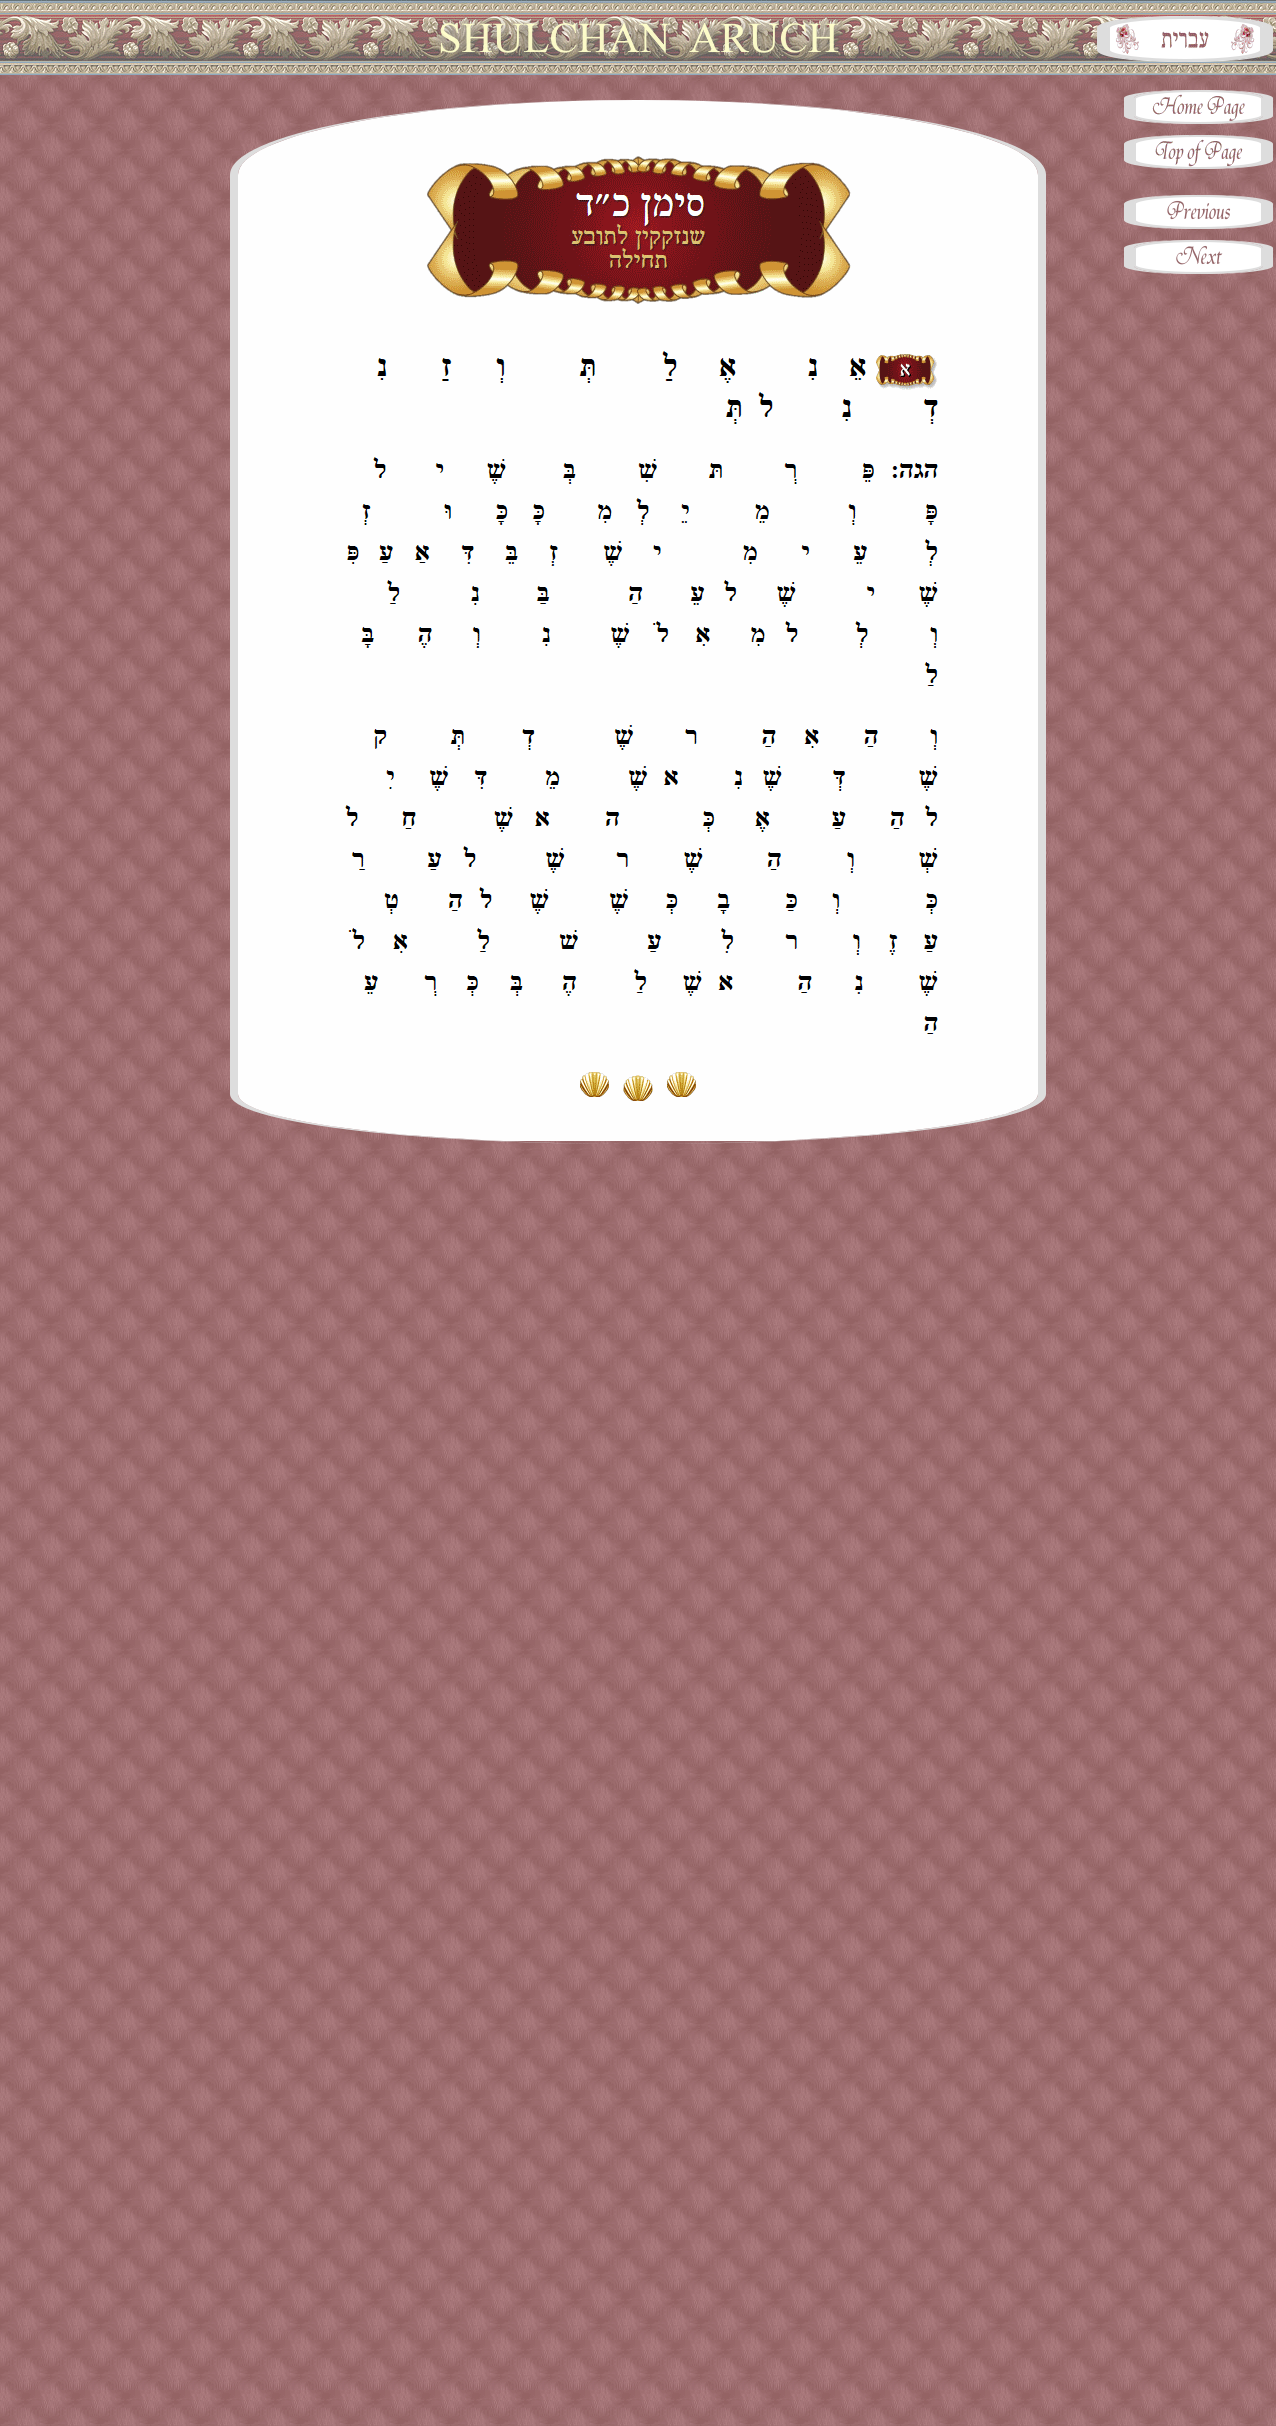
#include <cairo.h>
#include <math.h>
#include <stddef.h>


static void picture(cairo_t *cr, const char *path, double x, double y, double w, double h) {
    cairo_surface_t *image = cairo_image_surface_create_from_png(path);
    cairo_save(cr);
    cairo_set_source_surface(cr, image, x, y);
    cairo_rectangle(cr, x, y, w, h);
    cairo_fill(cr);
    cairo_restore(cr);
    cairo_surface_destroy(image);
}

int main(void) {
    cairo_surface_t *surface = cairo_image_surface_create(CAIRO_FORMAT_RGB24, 1276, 2426);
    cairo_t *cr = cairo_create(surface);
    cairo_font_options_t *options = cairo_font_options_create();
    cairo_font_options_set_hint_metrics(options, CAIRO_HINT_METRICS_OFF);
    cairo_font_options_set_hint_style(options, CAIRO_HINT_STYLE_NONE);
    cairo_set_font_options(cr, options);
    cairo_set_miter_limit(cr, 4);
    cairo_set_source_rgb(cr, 1, 1, 1);
    cairo_paint(cr);
    picture(cr, "img1.png", 0, 75, 1276, 2351);
    picture(cr, "img2.png", 0, 0, 1276, 75);
    picture(cr, "img3.png", 435, 17, 407, 41);
    cairo_set_source_rgb(cr, 0.867, 0.867, 0.867);
    cairo_new_path(cr);
    cairo_move_to(cr, 1195, 16);
    cairo_line_to(cr, 1190, 16);
    cairo_curve_to(cr, 1231, 16, 1263, 21, 1263, 28);
    cairo_line_to(cr, 1263, 50);
    cairo_curve_to(cr, 1263, 57, 1231, 62, 1190, 62);
    cairo_line_to(cr, 1195, 62);
    cairo_curve_to(cr, 1238, 62, 1273, 57, 1273, 50);
    cairo_line_to(cr, 1273, 28);
    cairo_curve_to(cr, 1273, 21, 1238, 16, 1195, 16);
    cairo_close_path(cr);
    cairo_fill(cr);
    cairo_new_path(cr);
    cairo_move_to(cr, 1175, 16);
    cairo_curve_to(cr, 1132, 16, 1097, 21, 1097, 28);
    cairo_line_to(cr, 1097, 50);
    cairo_curve_to(cr, 1097, 57, 1132, 62, 1175, 62);
    cairo_line_to(cr, 1180, 62);
    cairo_curve_to(cr, 1139, 62, 1107, 57, 1107, 50);
    cairo_line_to(cr, 1107, 28);
    cairo_curve_to(cr, 1107, 21, 1139, 16, 1180, 16);
    cairo_close_path(cr);
    cairo_fill(cr);
    picture(cr, "img4.png", 1107, 16, 156, 46);
    cairo_new_path(cr);
    cairo_move_to(cr, 1185, 17.5);
    cairo_curve_to(cr, 1227, 17.5, 1261.5, 22, 1261.5, 27.5);
    cairo_line_to(cr, 1261.5, 50.5);
    cairo_curve_to(cr, 1261.5, 56, 1227, 60.5, 1185, 60.5);
    cairo_curve_to(cr, 1143, 60.5, 1108.5, 56, 1108.5, 50.5);
    cairo_line_to(cr, 1108.5, 27.5);
    cairo_curve_to(cr, 1108.5, 22, 1143, 17.5, 1185, 17.5);
    cairo_close_path(cr);
    cairo_set_line_width(cr, 3);
    cairo_stroke(cr);
    cairo_new_path(cr);
    cairo_move_to(cr, 646, 100);
    cairo_line_to(cr, 642, 100);
    cairo_curve_to(cr, 861, 100, 1038, 134, 1038, 175);
    cairo_line_to(cr, 1038, 1094);
    cairo_curve_to(cr, 1038, 1121, 861, 1144, 642, 1144);
    cairo_line_to(cr, 646, 1144);
    cairo_curve_to(cr, 867, 1144, 1046, 1122, 1046, 1094);
    cairo_line_to(cr, 1046, 175);
    cairo_curve_to(cr, 1046, 134, 867, 100, 646, 100);
    cairo_close_path(cr);
    cairo_fill(cr);
    cairo_new_path(cr);
    cairo_move_to(cr, 630, 100);
    cairo_curve_to(cr, 409, 100, 230, 134, 230, 175);
    cairo_line_to(cr, 230, 1094);
    cairo_curve_to(cr, 230, 1122, 409, 1144, 630, 1144);
    cairo_line_to(cr, 634, 1144);
    cairo_curve_to(cr, 415, 1144, 238, 1121, 238, 1094);
    cairo_line_to(cr, 238, 175);
    cairo_curve_to(cr, 238, 134, 415, 100, 634, 100);
    cairo_close_path(cr);
    cairo_fill(cr);
    picture(cr, "img5.png", 238, 100, 800, 1041);
    cairo_new_path(cr);
    cairo_move_to(cr, 1208, 90);
    cairo_line_to(cr, 1203, 90);
    cairo_curve_to(cr, 1237, 90, 1263, 94, 1263, 98);
    cairo_line_to(cr, 1263, 116);
    cairo_curve_to(cr, 1263, 120, 1237, 124, 1203, 124);
    cairo_line_to(cr, 1208, 124);
    cairo_curve_to(cr, 1244, 124, 1273, 120, 1273, 116);
    cairo_line_to(cr, 1273, 98);
    cairo_curve_to(cr, 1273, 94, 1244, 90, 1208, 90);
    cairo_close_path(cr);
    cairo_fill(cr);
    cairo_new_path(cr);
    cairo_move_to(cr, 1188, 90);
    cairo_curve_to(cr, 1153, 90, 1124, 94, 1124, 98);
    cairo_line_to(cr, 1124, 116);
    cairo_curve_to(cr, 1124, 120, 1153, 124, 1188, 124);
    cairo_line_to(cr, 1193, 124);
    cairo_curve_to(cr, 1160, 124, 1134, 120, 1134, 116);
    cairo_line_to(cr, 1134, 98);
    cairo_curve_to(cr, 1134, 94, 1160, 90, 1193, 90);
    cairo_close_path(cr);
    cairo_fill(cr);
    picture(cr, "img6.png", 1134, 90, 129, 34);
    cairo_new_path(cr);
    cairo_move_to(cr, 1198.5, 91);
    cairo_curve_to(cr, 1233.5, 91, 1262, 94.5, 1262, 98.5);
    cairo_line_to(cr, 1262, 115.5);
    cairo_curve_to(cr, 1262, 119.5, 1233.5, 123, 1198.5, 123);
    cairo_curve_to(cr, 1163.5, 123, 1135, 119.5, 1135, 115.5);
    cairo_line_to(cr, 1135, 98.5);
    cairo_curve_to(cr, 1135, 94.5, 1163.5, 91, 1198.5, 91);
    cairo_close_path(cr);
    cairo_set_line_width(cr, 2);
    cairo_stroke(cr);
    cairo_new_path(cr);
    cairo_move_to(cr, 1208, 135);
    cairo_line_to(cr, 1203, 135);
    cairo_curve_to(cr, 1237, 135, 1263, 139, 1263, 144);
    cairo_line_to(cr, 1263, 160);
    cairo_curve_to(cr, 1263, 165, 1237, 169, 1203, 169);
    cairo_line_to(cr, 1208, 169);
    cairo_curve_to(cr, 1244, 169, 1273, 165, 1273, 160);
    cairo_line_to(cr, 1273, 144);
    cairo_curve_to(cr, 1273, 139, 1244, 135, 1208, 135);
    cairo_close_path(cr);
    cairo_fill(cr);
    cairo_new_path(cr);
    cairo_move_to(cr, 1188, 135);
    cairo_curve_to(cr, 1153, 135, 1124, 139, 1124, 144);
    cairo_line_to(cr, 1124, 160);
    cairo_curve_to(cr, 1124, 165, 1153, 169, 1188, 169);
    cairo_line_to(cr, 1193, 169);
    cairo_curve_to(cr, 1160, 169, 1134, 165, 1134, 160);
    cairo_line_to(cr, 1134, 144);
    cairo_curve_to(cr, 1134, 139, 1160, 135, 1193, 135);
    cairo_close_path(cr);
    cairo_fill(cr);
    picture(cr, "img7.png", 1134, 135, 129, 34);
    cairo_new_path(cr);
    cairo_move_to(cr, 1198.5, 136);
    cairo_curve_to(cr, 1233.5, 136, 1262, 139.5, 1262, 143.5);
    cairo_line_to(cr, 1262, 160.5);
    cairo_curve_to(cr, 1262, 164.5, 1233.5, 168, 1198.5, 168);
    cairo_curve_to(cr, 1163.5, 168, 1135, 164.5, 1135, 160.5);
    cairo_line_to(cr, 1135, 143.5);
    cairo_curve_to(cr, 1135, 139.5, 1163.5, 136, 1198.5, 136);
    cairo_close_path(cr);
    cairo_stroke(cr);
    cairo_new_path(cr);
    cairo_move_to(cr, 1208, 195);
    cairo_line_to(cr, 1203, 195);
    cairo_curve_to(cr, 1237, 195, 1263, 199, 1263, 204);
    cairo_line_to(cr, 1263, 220);
    cairo_curve_to(cr, 1263, 225, 1237, 229, 1203, 229);
    cairo_line_to(cr, 1208, 229);
    cairo_curve_to(cr, 1244, 229, 1273, 225, 1273, 220);
    cairo_line_to(cr, 1273, 204);
    cairo_curve_to(cr, 1273, 199, 1244, 195, 1208, 195);
    cairo_close_path(cr);
    cairo_fill(cr);
    cairo_new_path(cr);
    cairo_move_to(cr, 1188, 195);
    cairo_curve_to(cr, 1153, 195, 1124, 199, 1124, 204);
    cairo_line_to(cr, 1124, 220);
    cairo_curve_to(cr, 1124, 225, 1153, 229, 1188, 229);
    cairo_line_to(cr, 1193, 229);
    cairo_curve_to(cr, 1160, 229, 1134, 225, 1134, 220);
    cairo_line_to(cr, 1134, 204);
    cairo_curve_to(cr, 1134, 199, 1160, 195, 1193, 195);
    cairo_close_path(cr);
    cairo_fill(cr);
    picture(cr, "img8.png", 1134, 195, 129, 34);
    cairo_new_path(cr);
    cairo_move_to(cr, 1198.5, 196);
    cairo_curve_to(cr, 1233.5, 196, 1262, 199.5, 1262, 203.5);
    cairo_line_to(cr, 1262, 220.5);
    cairo_curve_to(cr, 1262, 224.5, 1233.5, 228, 1198.5, 228);
    cairo_curve_to(cr, 1163.5, 228, 1135, 224.5, 1135, 220.5);
    cairo_line_to(cr, 1135, 203.5);
    cairo_curve_to(cr, 1135, 199.5, 1163.5, 196, 1198.5, 196);
    cairo_close_path(cr);
    cairo_stroke(cr);
    cairo_new_path(cr);
    cairo_move_to(cr, 1208, 240);
    cairo_line_to(cr, 1203, 240);
    cairo_curve_to(cr, 1237, 240, 1263, 244, 1263, 248);
    cairo_line_to(cr, 1263, 266);
    cairo_curve_to(cr, 1263, 270, 1237, 274, 1203, 274);
    cairo_line_to(cr, 1208, 274);
    cairo_curve_to(cr, 1244, 274, 1273, 270, 1273, 266);
    cairo_line_to(cr, 1273, 248);
    cairo_curve_to(cr, 1273, 244, 1244, 240, 1208, 240);
    cairo_close_path(cr);
    cairo_fill(cr);
    cairo_new_path(cr);
    cairo_move_to(cr, 1188, 240);
    cairo_curve_to(cr, 1153, 240, 1124, 244, 1124, 248);
    cairo_line_to(cr, 1124, 266);
    cairo_curve_to(cr, 1124, 270, 1153, 274, 1188, 274);
    cairo_line_to(cr, 1193, 274);
    cairo_curve_to(cr, 1160, 274, 1134, 270, 1134, 266);
    cairo_line_to(cr, 1134, 248);
    cairo_curve_to(cr, 1134, 244, 1160, 240, 1193, 240);
    cairo_close_path(cr);
    cairo_fill(cr);
    picture(cr, "img9.png", 1134, 240, 129, 34);
    cairo_new_path(cr);
    cairo_move_to(cr, 1198.5, 241);
    cairo_curve_to(cr, 1233.5, 241, 1262, 244.5, 1262, 248.5);
    cairo_line_to(cr, 1262, 265.5);
    cairo_curve_to(cr, 1262, 269.5, 1233.5, 273, 1198.5, 273);
    cairo_curve_to(cr, 1163.5, 273, 1135, 269.5, 1135, 265.5);
    cairo_line_to(cr, 1135, 248.5);
    cairo_curve_to(cr, 1135, 244.5, 1163.5, 241, 1198.5, 241);
    cairo_close_path(cr);
    cairo_stroke(cr);
    cairo_surface_write_to_png(surface, "page.png");
    cairo_font_options_destroy(options);
    cairo_destroy(cr);
    cairo_surface_destroy(surface);
    return 0;
}
